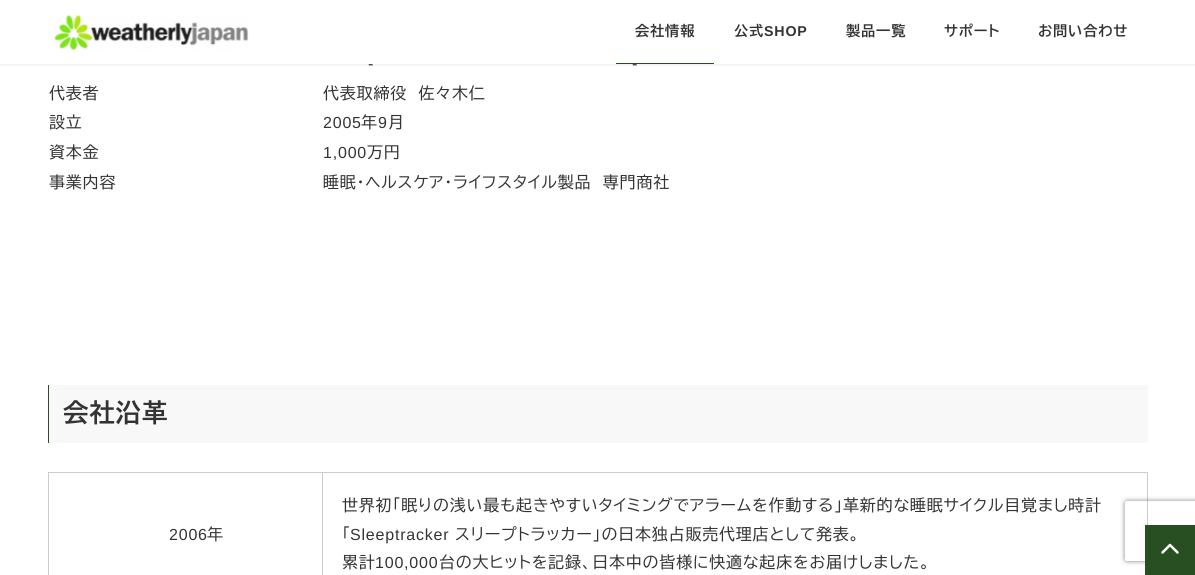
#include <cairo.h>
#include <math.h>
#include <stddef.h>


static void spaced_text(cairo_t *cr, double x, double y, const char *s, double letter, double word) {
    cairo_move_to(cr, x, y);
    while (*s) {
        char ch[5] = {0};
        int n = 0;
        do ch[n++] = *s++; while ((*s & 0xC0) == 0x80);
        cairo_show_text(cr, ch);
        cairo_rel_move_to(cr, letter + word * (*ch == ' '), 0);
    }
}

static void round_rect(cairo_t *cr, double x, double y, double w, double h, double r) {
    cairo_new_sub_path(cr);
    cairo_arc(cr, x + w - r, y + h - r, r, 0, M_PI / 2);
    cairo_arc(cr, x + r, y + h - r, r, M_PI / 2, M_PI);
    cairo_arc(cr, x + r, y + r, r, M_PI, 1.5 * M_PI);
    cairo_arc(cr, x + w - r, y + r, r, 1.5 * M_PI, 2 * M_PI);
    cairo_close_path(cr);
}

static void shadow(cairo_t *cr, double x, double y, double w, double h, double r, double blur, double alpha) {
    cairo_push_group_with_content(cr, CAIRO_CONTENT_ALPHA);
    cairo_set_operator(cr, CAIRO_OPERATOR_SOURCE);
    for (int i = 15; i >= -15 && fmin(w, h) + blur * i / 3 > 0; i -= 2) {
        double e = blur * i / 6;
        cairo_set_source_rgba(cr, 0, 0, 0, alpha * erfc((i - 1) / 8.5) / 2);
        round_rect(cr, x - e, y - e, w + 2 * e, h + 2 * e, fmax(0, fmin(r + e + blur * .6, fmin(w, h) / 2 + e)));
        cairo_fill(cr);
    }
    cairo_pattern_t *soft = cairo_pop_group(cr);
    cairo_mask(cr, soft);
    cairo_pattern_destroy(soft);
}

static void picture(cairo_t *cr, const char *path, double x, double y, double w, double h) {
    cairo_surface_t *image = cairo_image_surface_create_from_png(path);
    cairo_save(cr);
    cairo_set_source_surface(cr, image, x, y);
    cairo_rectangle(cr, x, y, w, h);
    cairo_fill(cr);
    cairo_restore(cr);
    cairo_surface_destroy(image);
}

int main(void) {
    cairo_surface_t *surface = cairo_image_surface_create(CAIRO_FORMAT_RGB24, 1195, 575);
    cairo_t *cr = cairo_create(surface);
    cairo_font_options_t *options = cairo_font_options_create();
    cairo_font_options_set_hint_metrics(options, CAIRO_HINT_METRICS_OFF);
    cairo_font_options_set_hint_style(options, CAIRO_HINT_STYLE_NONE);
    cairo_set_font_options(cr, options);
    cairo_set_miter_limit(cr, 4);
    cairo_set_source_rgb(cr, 1, 1, 1);
    cairo_paint(cr);
    cairo_set_source_rgb(cr, 0, 0, 0);
    shadow(cr, -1, 0, 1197, 66, 0, 1, 0.05);
    cairo_set_source_rgb(cr, 1, 1, 1);
    cairo_rectangle(cr, 0, 0, 1195, 64);
    cairo_fill(cr);
    picture(cr, "img1.png", 54, 15, 195, 36);
    cairo_select_font_face(cr, "BIZ UDPGothic", CAIRO_FONT_SLANT_NORMAL, CAIRO_FONT_WEIGHT_BOLD);
    cairo_set_font_size(cr, 14.25);
    cairo_set_source_rgb(cr, 0.2, 0.2, 0.2);
    spaced_text(cr, 635, 36, "会社情報", 0.8, 0);
    cairo_set_source_rgb(cr, 0.157, 0.31, 0.129);
    cairo_rectangle(cr, 616, 63, 98, 1);
    cairo_fill(cr);
    cairo_set_source_rgb(cr, 0.2, 0.2, 0.2);
    spaced_text(cr, 734, 36, "公式", 0.8, 0);
    cairo_select_font_face(cr, "Liberation Sans", CAIRO_FONT_SLANT_NORMAL, CAIRO_FONT_WEIGHT_BOLD);
    spaced_text(cr, 764, 36, "SHOP", 0.8, 0);
    cairo_select_font_face(cr, "BIZ UDPGothic", CAIRO_FONT_SLANT_NORMAL, CAIRO_FONT_WEIGHT_BOLD);
    spaced_text(cr, 846, 36, "製品一覧", 0.8, 0);
    spaced_text(cr, 944, 36, "サポート", 0.8, 0);
    spaced_text(cr, 1038, 36, "お問い合わせ", 0.8, 0);
    cairo_select_font_face(cr, "Liberation Sans", CAIRO_FONT_SLANT_NORMAL, CAIRO_FONT_WEIGHT_NORMAL);
    cairo_set_font_size(cr, 16);
    spaced_text(cr, 368, 69, "-", 0.8, 0);
    spaced_text(cr, 632, 69, "-", 0.8, 0);
    cairo_select_font_face(cr, "BIZ UDPGothic", CAIRO_FONT_SLANT_NORMAL, CAIRO_FONT_WEIGHT_NORMAL);
    spaced_text(cr, 49, 99, "代表者", 0.8, 0);
    spaced_text(cr, 323, 99, "代表取締役　佐々木仁", 0.8, 0);
    spaced_text(cr, 49, 128, "設立", 0.8, 0);
    cairo_select_font_face(cr, "Liberation Sans", CAIRO_FONT_SLANT_NORMAL, CAIRO_FONT_WEIGHT_NORMAL);
    spaced_text(cr, 323, 128, "2005", 0.8, 0);
    cairo_select_font_face(cr, "BIZ UDPGothic", CAIRO_FONT_SLANT_NORMAL, CAIRO_FONT_WEIGHT_NORMAL);
    spaced_text(cr, 361, 128, "年", 0.8, 0);
    cairo_select_font_face(cr, "Liberation Sans", CAIRO_FONT_SLANT_NORMAL, CAIRO_FONT_WEIGHT_NORMAL);
    spaced_text(cr, 378, 128, "9", 0.8, 0);
    cairo_select_font_face(cr, "BIZ UDPGothic", CAIRO_FONT_SLANT_NORMAL, CAIRO_FONT_WEIGHT_NORMAL);
    spaced_text(cr, 388, 128, "月", 0.8, 0);
    spaced_text(cr, 49, 158, "資本金", 0.8, 0);
    cairo_select_font_face(cr, "Liberation Sans", CAIRO_FONT_SLANT_NORMAL, CAIRO_FONT_WEIGHT_NORMAL);
    spaced_text(cr, 323, 158, "1,000", 0.8, 0);
    cairo_select_font_face(cr, "BIZ UDPGothic", CAIRO_FONT_SLANT_NORMAL, CAIRO_FONT_WEIGHT_NORMAL);
    spaced_text(cr, 367, 158, "万円", 0.8, 0);
    spaced_text(cr, 49, 188, "事業内容", 0.8, 0);
    spaced_text(cr, 323, 188, "睡眠・ヘルスケア・ライフスタイル製品　専門商社", 0.8, 0);
    cairo_set_source_rgb(cr, 0.969, 0.969, 0.969);
    cairo_rectangle(cr, 49, 385, 1099, 58);
    cairo_fill(cr);
    cairo_set_source_rgb(cr, 0.157, 0.31, 0.129);
    cairo_rectangle(cr, 48, 385, 1, 58);
    cairo_fill(cr);
    cairo_select_font_face(cr, "BIZ UDPGothic", CAIRO_FONT_SLANT_NORMAL, CAIRO_FONT_WEIGHT_BOLD);
    cairo_set_font_size(cr, 25.5);
    cairo_set_source_rgb(cr, 0.2, 0.2, 0.2);
    spaced_text(cr, 63, 422, "会社沿革", 0.8, 0);
    cairo_rectangle(cr, 48.5, 472.5, 274, 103);
    cairo_set_source_rgb(cr, 0.8, 0.8, 0.8);
    cairo_set_line_width(cr, 1);
    cairo_stroke(cr);
    cairo_select_font_face(cr, "Liberation Sans", CAIRO_FONT_SLANT_NORMAL, CAIRO_FONT_WEIGHT_NORMAL);
    cairo_set_font_size(cr, 16);
    cairo_set_source_rgb(cr, 0.2, 0.2, 0.2);
    spaced_text(cr, 169, 540, "2006", 0.8, 0);
    cairo_select_font_face(cr, "BIZ UDPGothic", CAIRO_FONT_SLANT_NORMAL, CAIRO_FONT_WEIGHT_NORMAL);
    spaced_text(cr, 207, 540, "年", 0.8, 0);
    cairo_set_source_rgb(cr, 0.8, 0.8, 0.8);
    cairo_rectangle(cr, 323, 472, 825, 1);
    cairo_fill(cr);
    cairo_rectangle(cr, 1147, 472, 1, 53);
    cairo_fill(cr);
    cairo_set_source_rgb(cr, 0.2, 0.2, 0.2);
    spaced_text(cr, 342, 511, "世界初「眠りの浅い最も起きやすいタイミングでアラームを作動する」革新的な睡眠サイクル目覚まし時計", 0.8, 0);
    spaced_text(cr, 342, 540, "「", 0.8, 0);
    cairo_select_font_face(cr, "Liberation Sans", CAIRO_FONT_SLANT_NORMAL, CAIRO_FONT_WEIGHT_NORMAL);
    spaced_text(cr, 350, 540, "Sleeptracker", 0.8, 0);
    cairo_select_font_face(cr, "BIZ UDPGothic", CAIRO_FONT_SLANT_NORMAL, CAIRO_FONT_WEIGHT_NORMAL);
    spaced_text(cr, 455, 540, "スリープトラッカー」の日本独占販売代理店として発表。", 0.8, 0);
    spaced_text(cr, 342, 568, "累計", 0.8, 0);
    cairo_select_font_face(cr, "Liberation Sans", CAIRO_FONT_SLANT_NORMAL, CAIRO_FONT_WEIGHT_NORMAL);
    spaced_text(cr, 375, 568, "100,000", 0.8, 0);
    cairo_select_font_face(cr, "BIZ UDPGothic", CAIRO_FONT_SLANT_NORMAL, CAIRO_FONT_WEIGHT_NORMAL);
    spaced_text(cr, 439, 568, "台の大ヒットを記録、日本中の皆様に快適な起床をお届けしました。", 0.8, 0);
    cairo_save(cr);
    cairo_set_fill_rule(cr, CAIRO_FILL_RULE_EVEN_ODD);
    cairo_new_path(cr);
    cairo_move_to(cr, 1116, 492);
    cairo_line_to(cr, 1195, 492);
    cairo_line_to(cr, 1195, 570);
    cairo_line_to(cr, 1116, 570);
    cairo_close_path(cr);
    cairo_move_to(cr, 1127, 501);
    cairo_line_to(cr, 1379, 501);
    cairo_curve_to(cr, 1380, 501, 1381, 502, 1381, 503);
    cairo_line_to(cr, 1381, 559);
    cairo_curve_to(cr, 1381, 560, 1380, 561, 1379, 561);
    cairo_line_to(cr, 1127, 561);
    cairo_curve_to(cr, 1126, 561, 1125, 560, 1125, 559);
    cairo_line_to(cr, 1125, 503);
    cairo_curve_to(cr, 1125, 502, 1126, 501, 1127, 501);
    cairo_close_path(cr);
    cairo_clip(cr);
    cairo_set_source_rgb(cr, 0.502, 0.502, 0.502);
    shadow(cr, 1125, 501, 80, 60, 2, 2.5, 1);
    cairo_restore(cr);
    cairo_set_source_rgb(cr, 0.157, 0.31, 0.129);
    cairo_rectangle(cr, 1145, 525, 50, 50);
    cairo_fill(cr);
    picture(cr, "img2.png", 1161, 543, 18, 11);
    cairo_surface_write_to_png(surface, "page.png");
    cairo_font_options_destroy(options);
    cairo_destroy(cr);
    cairo_surface_destroy(surface);
    return 0;
}
